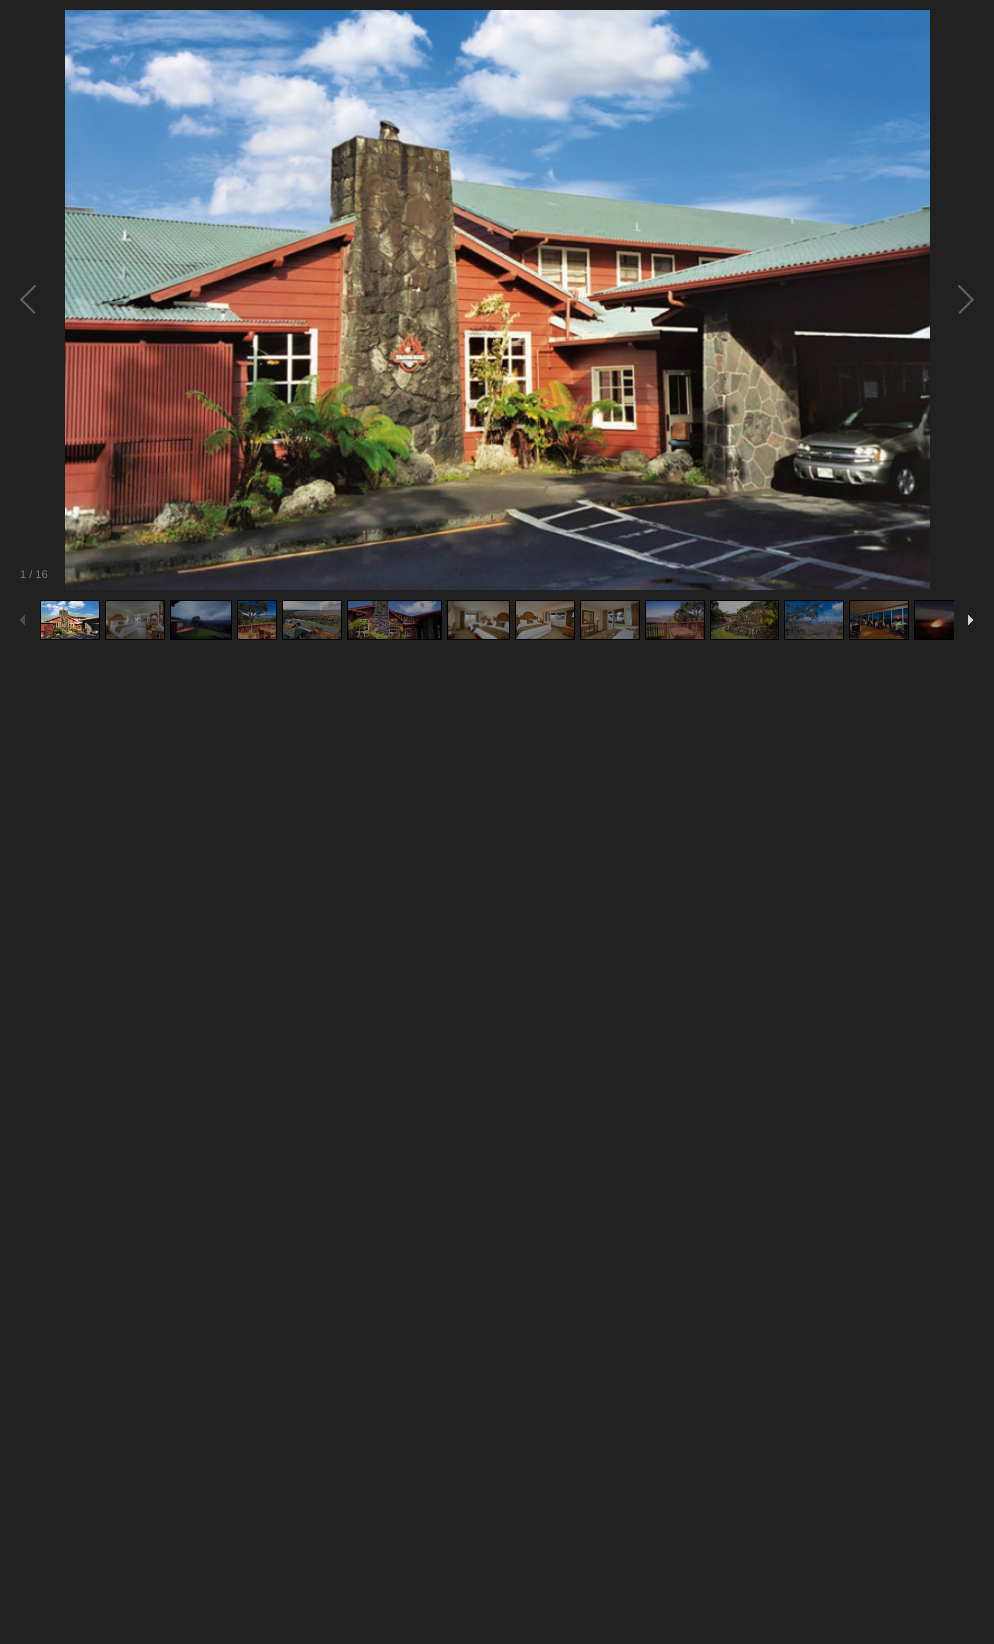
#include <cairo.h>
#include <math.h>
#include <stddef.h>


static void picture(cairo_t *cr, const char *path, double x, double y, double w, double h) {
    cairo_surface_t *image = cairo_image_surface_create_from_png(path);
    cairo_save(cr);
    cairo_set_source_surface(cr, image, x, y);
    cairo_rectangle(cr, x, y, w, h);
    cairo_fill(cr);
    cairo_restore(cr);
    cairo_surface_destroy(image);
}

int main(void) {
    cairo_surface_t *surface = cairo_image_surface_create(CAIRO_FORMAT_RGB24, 994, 1644);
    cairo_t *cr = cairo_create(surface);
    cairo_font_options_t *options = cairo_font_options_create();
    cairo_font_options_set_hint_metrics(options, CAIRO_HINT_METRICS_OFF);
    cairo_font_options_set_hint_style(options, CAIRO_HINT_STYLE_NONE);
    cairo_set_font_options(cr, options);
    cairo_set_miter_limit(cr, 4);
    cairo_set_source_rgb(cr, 0.129, 0.129, 0.129);
    cairo_paint(cr);
    picture(cr, "img1.png", 65, 10, 865, 580);
    picture(cr, "img2.png", 20, 285, 16, 29);
    picture(cr, "img3.png", 958, 285, 16, 29);
    cairo_select_font_face(cr, "Liberation Sans", CAIRO_FONT_SLANT_NORMAL, CAIRO_FONT_WEIGHT_NORMAL);
    cairo_set_font_size(cr, 11);
    cairo_set_source_rgb(cr, 0.478, 0.478, 0.478);
    cairo_move_to(cr, 20, 578);
    cairo_show_text(cr, "1 / 16");
    picture(cr, "img4.png", 20, 615, 5, 10);
    cairo_set_source_rgb(cr, 0, 0, 0);
    cairo_rectangle(cr, 40, 600, 60, 40);
    cairo_fill(cr);
    picture(cr, "img5.png", 41, 601, 58, 38);
    cairo_rectangle(cr, 105, 600, 60, 40);
    cairo_fill(cr);
    picture(cr, "img6.png", 106, 601, 58, 38);
    cairo_rectangle(cr, 170, 600, 62, 40);
    cairo_fill(cr);
    picture(cr, "img7.png", 171, 601, 60, 38);
    cairo_rectangle(cr, 237, 600, 40, 40);
    cairo_fill(cr);
    picture(cr, "img8.png", 238, 601, 38, 38);
    cairo_rectangle(cr, 282, 600, 60, 40);
    cairo_fill(cr);
    picture(cr, "img9.png", 283, 601, 58, 38);
    cairo_rectangle(cr, 347, 600, 95, 40);
    cairo_fill(cr);
    picture(cr, "img10.png", 348, 601, 93, 38);
    cairo_rectangle(cr, 447, 600, 63, 40);
    cairo_fill(cr);
    picture(cr, "img11.png", 448, 601, 61, 38);
    cairo_rectangle(cr, 515, 600, 60, 40);
    cairo_fill(cr);
    picture(cr, "img12.png", 516, 601, 58, 38);
    cairo_rectangle(cr, 580, 600, 60, 40);
    cairo_fill(cr);
    picture(cr, "img13.png", 581, 601, 58, 38);
    cairo_rectangle(cr, 645, 600, 60, 40);
    cairo_fill(cr);
    picture(cr, "img14.png", 646, 601, 58, 38);
    cairo_rectangle(cr, 710, 600, 69, 40);
    cairo_fill(cr);
    picture(cr, "img15.png", 711, 601, 67, 38);
    cairo_rectangle(cr, 784, 600, 60, 40);
    cairo_fill(cr);
    picture(cr, "img16.png", 785, 601, 58, 38);
    cairo_rectangle(cr, 849, 600, 60, 40);
    cairo_fill(cr);
    picture(cr, "img17.png", 850, 601, 58, 38);
    cairo_rectangle(cr, 914, 600, 40, 40);
    cairo_fill(cr);
    picture(cr, "img18.png", 915, 601, 39, 38);
    picture(cr, "img19.png", 968, 615, 5, 10);
    cairo_surface_write_to_png(surface, "page.png");
    cairo_font_options_destroy(options);
    cairo_destroy(cr);
    cairo_surface_destroy(surface);
    return 0;
}
